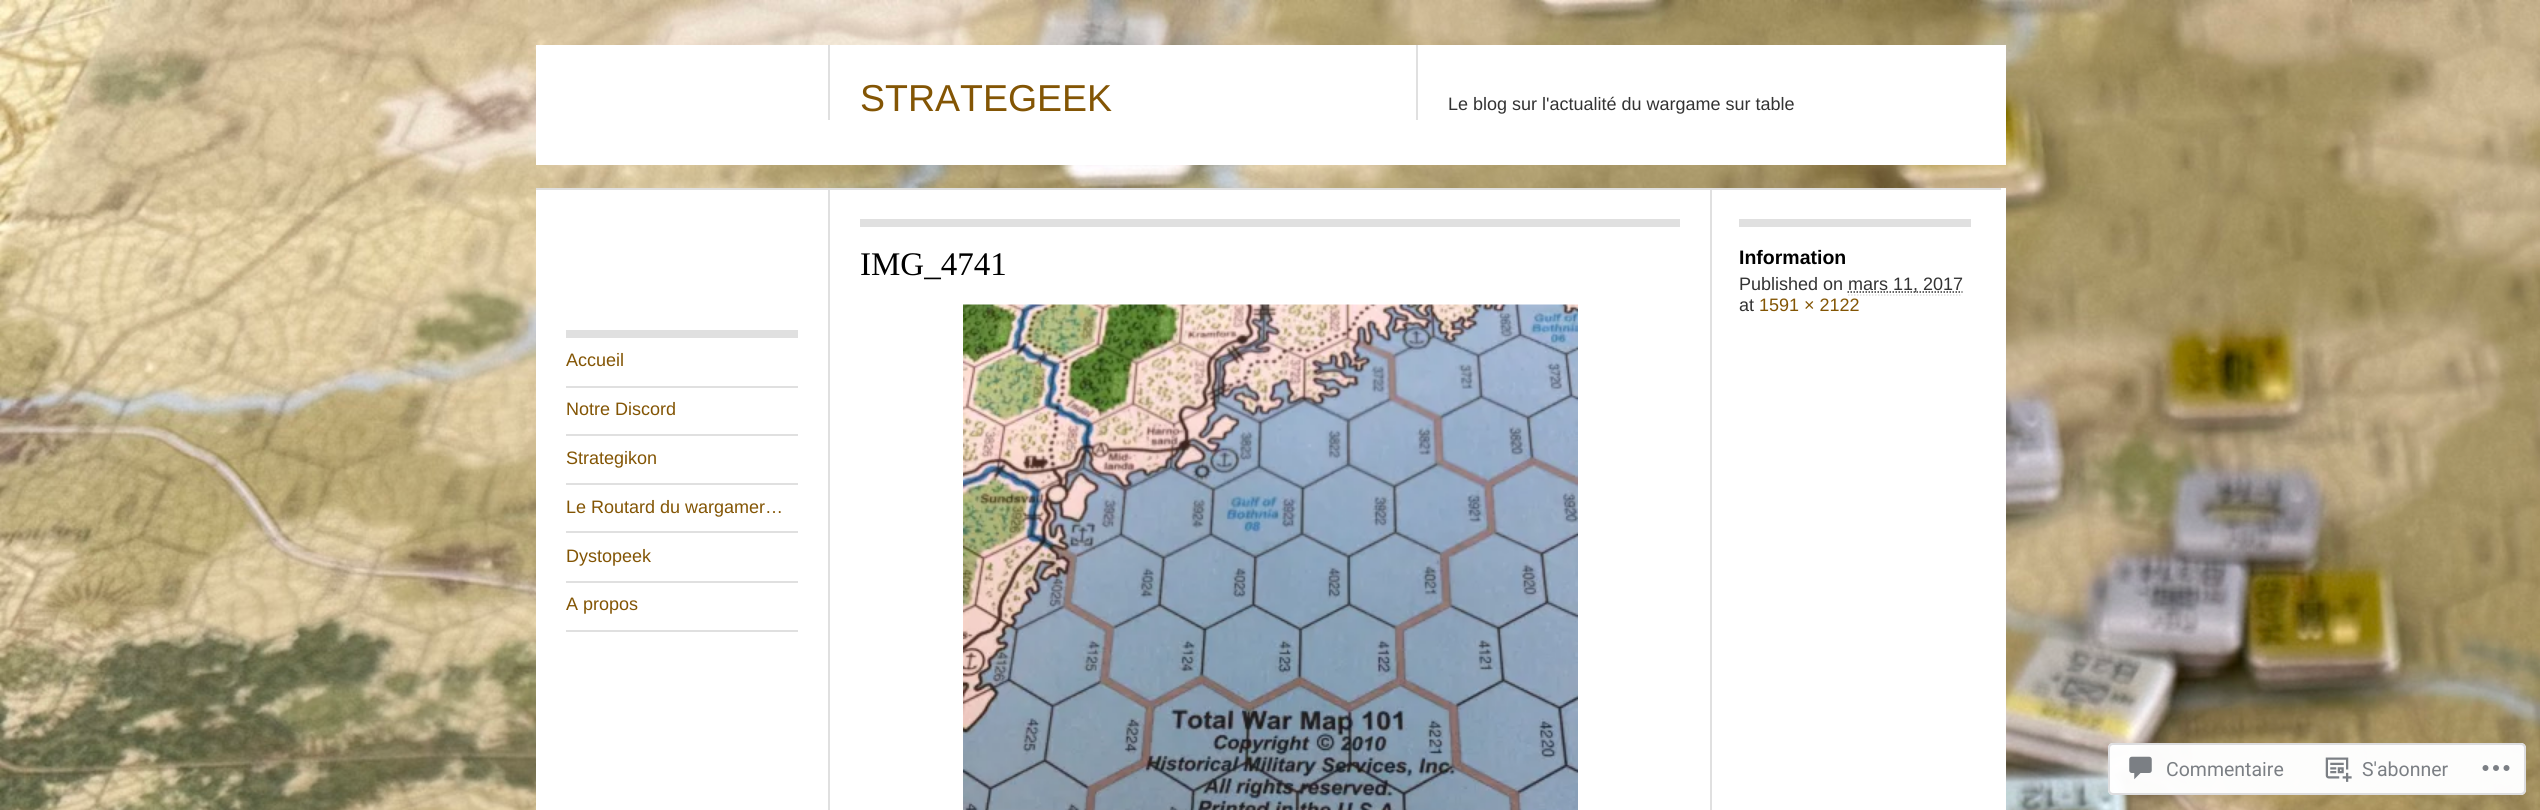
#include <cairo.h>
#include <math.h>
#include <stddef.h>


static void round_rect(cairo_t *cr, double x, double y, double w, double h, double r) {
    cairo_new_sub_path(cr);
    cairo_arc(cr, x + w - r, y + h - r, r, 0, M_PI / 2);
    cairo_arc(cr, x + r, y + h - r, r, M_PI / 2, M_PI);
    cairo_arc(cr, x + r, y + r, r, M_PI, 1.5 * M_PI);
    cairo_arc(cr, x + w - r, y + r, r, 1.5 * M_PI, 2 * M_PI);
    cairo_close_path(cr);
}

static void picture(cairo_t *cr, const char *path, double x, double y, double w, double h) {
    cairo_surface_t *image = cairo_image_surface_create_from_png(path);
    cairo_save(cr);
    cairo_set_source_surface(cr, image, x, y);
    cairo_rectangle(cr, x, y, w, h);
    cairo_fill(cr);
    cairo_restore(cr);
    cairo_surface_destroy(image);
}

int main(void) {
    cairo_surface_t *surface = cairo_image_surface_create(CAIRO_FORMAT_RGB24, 2540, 810);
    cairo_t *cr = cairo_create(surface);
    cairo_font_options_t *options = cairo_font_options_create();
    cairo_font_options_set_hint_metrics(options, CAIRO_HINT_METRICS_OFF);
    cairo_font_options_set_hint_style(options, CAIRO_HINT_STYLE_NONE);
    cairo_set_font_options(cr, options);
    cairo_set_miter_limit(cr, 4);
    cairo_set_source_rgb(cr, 1, 1, 1);
    cairo_paint(cr);
    picture(cr, "img1.png", 0, 0, 2540, 810);
    cairo_set_source_rgb(cr, 1, 1, 1);
    cairo_rectangle(cr, 536, 45, 1470, 120);
    cairo_fill(cr);
    cairo_set_source_rgb(cr, 0.878, 0.878, 0.878);
    cairo_rectangle(cr, 828, 45, 2, 75);
    cairo_fill(cr);
    cairo_select_font_face(cr, "Liberation Sans", CAIRO_FONT_SLANT_NORMAL, CAIRO_FONT_WEIGHT_NORMAL);
    cairo_set_font_size(cr, 37.5);
    cairo_set_source_rgb(cr, 0.514, 0.333, 0.016);
    cairo_move_to(cr, 860, 111);
    cairo_show_text(cr, "STRATEGEEK");
    cairo_set_source_rgb(cr, 0.878, 0.878, 0.878);
    cairo_rectangle(cr, 1416, 45, 2, 75);
    cairo_fill(cr);
    cairo_set_font_size(cr, 18);
    cairo_set_source_rgb(cr, 0.2, 0.2, 0.2);
    cairo_move_to(cr, 1448, 110);
    cairo_show_text(cr, "Le blog sur l'actualité du wargame sur table");
    cairo_set_source_rgb(cr, 1, 1, 1);
    cairo_rectangle(cr, 536, 188, 1470, 622);
    cairo_fill(cr);
    cairo_set_source_rgb(cr, 0.878, 0.878, 0.878);
    cairo_rectangle(cr, 536, 188, 1176, 2);
    cairo_fill(cr);
    cairo_rectangle(cr, 1710, 188, 2, 622);
    cairo_fill(cr);
    cairo_rectangle(cr, 828, 188, 2, 622);
    cairo_fill(cr);
    cairo_rectangle(cr, 860, 219, 820, 8);
    cairo_fill(cr);
    cairo_select_font_face(cr, "Liberation Serif", CAIRO_FONT_SLANT_NORMAL, CAIRO_FONT_WEIGHT_NORMAL);
    cairo_set_font_size(cr, 33);
    cairo_set_source_rgb(cr, 0, 0, 0);
    cairo_move_to(cr, 860, 275);
    cairo_show_text(cr, "IMG_4741");
    picture(cr, "img2.png", 963, 304, 615, 506);
    cairo_set_source_rgb(cr, 0.878, 0.878, 0.878);
    cairo_rectangle(cr, 1709, 188, 292, 2);
    cairo_fill(cr);
    cairo_rectangle(cr, 1739, 219, 232, 8);
    cairo_fill(cr);
    cairo_select_font_face(cr, "Liberation Sans", CAIRO_FONT_SLANT_NORMAL, CAIRO_FONT_WEIGHT_BOLD);
    cairo_set_font_size(cr, 19.5);
    cairo_set_source_rgb(cr, 0, 0, 0);
    cairo_move_to(cr, 1739, 264);
    cairo_show_text(cr, "Information");
    cairo_select_font_face(cr, "Liberation Sans", CAIRO_FONT_SLANT_NORMAL, CAIRO_FONT_WEIGHT_NORMAL);
    cairo_set_font_size(cr, 18);
    cairo_set_source_rgb(cr, 0.2, 0.2, 0.2);
    cairo_move_to(cr, 1739, 290);
    cairo_show_text(cr, "Published on");
    cairo_new_path(cr);
    cairo_move_to(cr, 1847.5, 292);
    cairo_line_to(cr, 1962.5, 292);
    cairo_set_line_width(cr, 1.5);
    cairo_set_dash(cr, (double[]){1.5, 1.5}, 2, 0);
    cairo_stroke(cr);
    cairo_move_to(cr, 1848, 290);
    cairo_show_text(cr, "mars 11, 2017");
    cairo_new_path(cr);
    cairo_move_to(cr, 1848, 295);
    cairo_line_to(cr, 1962, 295);
    cairo_set_source_rgb(cr, 0.878, 0.878, 0.878);
    cairo_stroke(cr);
    cairo_set_source_rgb(cr, 0.2, 0.2, 0.2);
    cairo_move_to(cr, 1739, 311);
    cairo_show_text(cr, "at");
    cairo_set_source_rgb(cr, 0.514, 0.333, 0.016);
    cairo_move_to(cr, 1759, 311);
    cairo_show_text(cr, "1591 × 2122");
    cairo_set_source_rgb(cr, 0.878, 0.878, 0.878);
    cairo_rectangle(cr, 566, 330, 232, 8);
    cairo_fill(cr);
    cairo_rectangle(cr, 566, 386, 232, 2);
    cairo_fill(cr);
    cairo_set_source_rgb(cr, 0.514, 0.333, 0.016);
    cairo_move_to(cr, 566, 366);
    cairo_show_text(cr, "Accueil");
    cairo_set_source_rgb(cr, 0.878, 0.878, 0.878);
    cairo_rectangle(cr, 566, 434, 232, 2);
    cairo_fill(cr);
    cairo_set_source_rgb(cr, 0.514, 0.333, 0.016);
    cairo_move_to(cr, 566, 415);
    cairo_show_text(cr, "Notre Discord");
    cairo_set_source_rgb(cr, 0.878, 0.878, 0.878);
    cairo_rectangle(cr, 566, 483, 232, 2);
    cairo_fill(cr);
    cairo_set_source_rgb(cr, 0.514, 0.333, 0.016);
    cairo_move_to(cr, 566, 464);
    cairo_show_text(cr, "Strategikon");
    cairo_set_source_rgb(cr, 0.878, 0.878, 0.878);
    cairo_rectangle(cr, 566, 531, 232, 2);
    cairo_fill(cr);
    cairo_set_source_rgb(cr, 0.514, 0.333, 0.016);
    cairo_move_to(cr, 566, 513);
    cairo_show_text(cr, "Le Routard du wargamer…");
    cairo_set_source_rgb(cr, 0.878, 0.878, 0.878);
    cairo_rectangle(cr, 566, 581, 232, 2);
    cairo_fill(cr);
    cairo_set_source_rgb(cr, 0.514, 0.333, 0.016);
    cairo_move_to(cr, 566, 562);
    cairo_show_text(cr, "Dystopeek");
    cairo_set_source_rgb(cr, 0.878, 0.878, 0.878);
    cairo_rectangle(cr, 566, 630, 232, 2);
    cairo_fill(cr);
    cairo_set_source_rgb(cr, 0.514, 0.333, 0.016);
    cairo_move_to(cr, 566, 610);
    cairo_show_text(cr, "A propos");
    cairo_set_source_rgba(cr, 1, 1, 1, 0.98);
    round_rect(cr, 2108, 743, 418, 52, 5);
    cairo_fill(cr);
    round_rect(cr, 2109, 744, 416, 50, 4);
    cairo_set_source_rgba(cr, 0.863, 0.863, 0.871, 0.98);
    cairo_set_line_width(cr, 2);
    cairo_set_dash(cr, NULL, 0, 0);
    cairo_stroke(cr);
    picture(cr, "img3.png", 2129, 756, 23, 24);
    cairo_select_font_face(cr, "Roboto", CAIRO_FONT_SLANT_NORMAL, CAIRO_FONT_WEIGHT_NORMAL);
    cairo_set_font_size(cr, 19.5);
    cairo_set_source_rgb(cr, 0.482, 0.498, 0.518);
    cairo_move_to(cr, 2166, 776);
    cairo_show_text(cr, "Commentaire");
    picture(cr, "img4.png", 2325, 757, 27, 25);
    cairo_move_to(cr, 2362, 776);
    cairo_show_text(cr, "S'abonner");
    picture(cr, "img5.png", 2482, 765, 28, 6);
    cairo_surface_write_to_png(surface, "page.png");
    cairo_font_options_destroy(options);
    cairo_destroy(cr);
    cairo_surface_destroy(surface);
    return 0;
}
